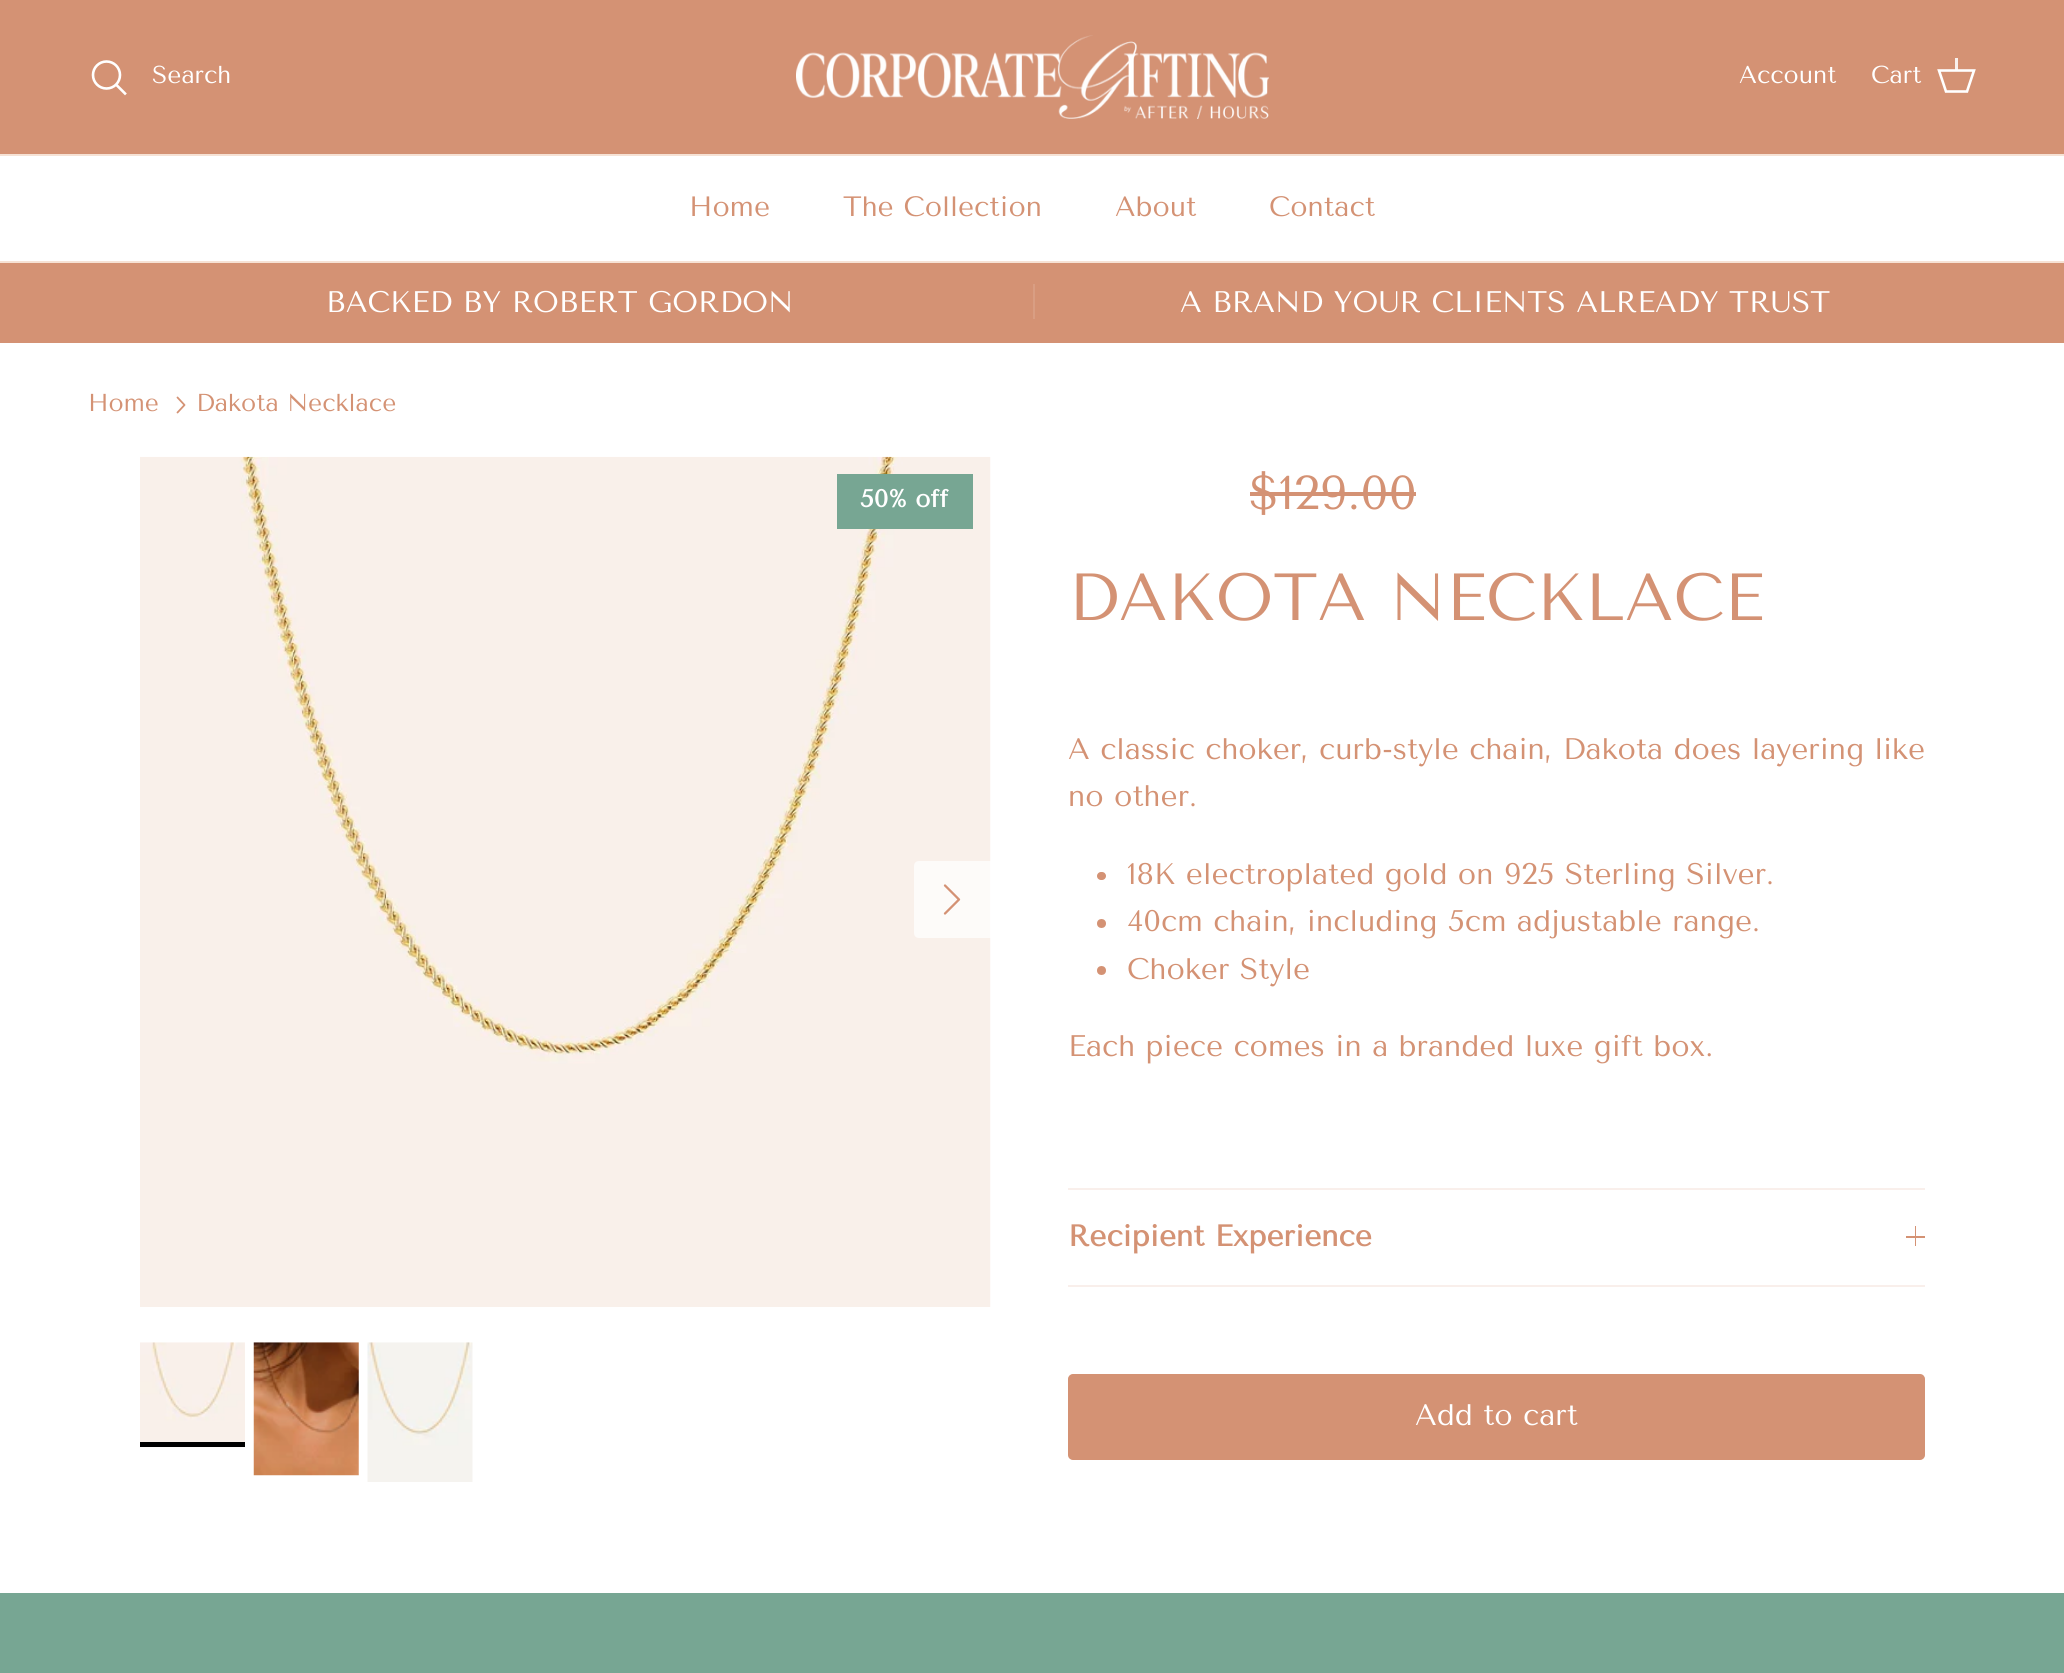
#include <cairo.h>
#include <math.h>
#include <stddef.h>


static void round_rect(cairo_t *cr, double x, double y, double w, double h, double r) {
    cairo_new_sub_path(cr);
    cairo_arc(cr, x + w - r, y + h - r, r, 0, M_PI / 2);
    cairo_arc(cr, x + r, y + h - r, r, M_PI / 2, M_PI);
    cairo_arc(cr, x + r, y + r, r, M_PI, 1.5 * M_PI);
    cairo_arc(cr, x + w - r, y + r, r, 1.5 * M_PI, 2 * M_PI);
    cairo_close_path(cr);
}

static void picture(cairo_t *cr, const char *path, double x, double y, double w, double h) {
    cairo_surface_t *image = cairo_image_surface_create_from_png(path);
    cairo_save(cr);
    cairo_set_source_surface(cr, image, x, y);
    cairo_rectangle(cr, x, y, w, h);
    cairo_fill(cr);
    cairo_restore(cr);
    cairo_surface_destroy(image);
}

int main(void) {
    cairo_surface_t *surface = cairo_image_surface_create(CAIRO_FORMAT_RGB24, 2064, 1673);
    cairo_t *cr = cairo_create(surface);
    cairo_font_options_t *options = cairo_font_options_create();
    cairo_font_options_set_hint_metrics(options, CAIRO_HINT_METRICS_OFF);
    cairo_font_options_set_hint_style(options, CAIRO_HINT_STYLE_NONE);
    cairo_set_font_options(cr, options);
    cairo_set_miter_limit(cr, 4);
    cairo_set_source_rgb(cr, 1, 1, 1);
    cairo_paint(cr);
    cairo_set_source_rgb(cr, 0.831, 0.573, 0.455);
    cairo_rectangle(cr, 0, 0, 2064, 154);
    cairo_fill(cr);
    cairo_set_source_rgb(cr, 0.961, 0.886, 0.835);
    cairo_rectangle(cr, 0, 154, 2064, 2);
    cairo_fill(cr);
    cairo_arc(cr, 106.5, 75, 13.5, 0, 2 * M_PI);
    cairo_set_source_rgb(cr, 1, 1, 1);
    cairo_set_line_width(cr, 2.6);
    cairo_stroke(cr);
    cairo_select_font_face(cr, "Tenor Sans", CAIRO_FONT_SLANT_NORMAL, CAIRO_FONT_WEIGHT_NORMAL);
    cairo_set_font_size(cr, 24.5);
    cairo_move_to(cr, 152, 83);
    cairo_show_text(cr, "Search");
    cairo_new_path(cr);
    cairo_move_to(cr, 117, 85.5);
    cairo_line_to(cr, 125, 93.5);
    cairo_set_line_cap(cr, CAIRO_LINE_CAP_SQUARE);
    cairo_stroke(cr);
    picture(cr, "img1.png", 796, 35, 473, 84);
    cairo_move_to(cr, 1739, 83);
    cairo_show_text(cr, "Account");
    cairo_move_to(cr, 1871, 83);
    cairo_show_text(cr, "Cart");
    cairo_new_path(cr);
    cairo_move_to(cr, 1939, 70.5);
    cairo_line_to(cr, 1974, 70.5);
    cairo_line_to(cr, 1967, 91.5);
    cairo_line_to(cr, 1946, 91.5);
    cairo_close_path(cr);
    cairo_set_line_cap(cr, CAIRO_LINE_CAP_BUTT);
    cairo_stroke(cr);
    cairo_set_source_rgba(cr, 1, 1, 1, 0.87);
    cairo_rectangle(cr, 1955, 58, 3, 13);
    cairo_fill(cr);
    cairo_set_source_rgb(cr, 0.961, 0.886, 0.835);
    cairo_rectangle(cr, 0, 261, 2064, 2);
    cairo_fill(cr);
    cairo_set_font_size(cr, 28);
    cairo_set_source_rgb(cr, 0.831, 0.573, 0.455);
    cairo_move_to(cr, 689, 216);
    cairo_show_text(cr, "Home");
    cairo_move_to(cr, 843, 216);
    cairo_show_text(cr, "The Collection");
    cairo_move_to(cr, 1115, 216);
    cairo_show_text(cr, "About");
    cairo_move_to(cr, 1269, 216);
    cairo_show_text(cr, "Contact");
    cairo_rectangle(cr, 0, 263, 2064, 80);
    cairo_fill(cr);
    cairo_set_font_size(cr, 29.75);
    cairo_set_source_rgb(cr, 1, 1, 1);
    cairo_move_to(cr, 326, 312);
    cairo_show_text(cr, "BACKED BY ROBERT GORDON");
    cairo_set_source_rgb(cr, 0.851, 0.62, 0.514);
    cairo_rectangle(cr, 1033, 284, 2, 35);
    cairo_fill(cr);
    cairo_set_source_rgb(cr, 1, 1, 1);
    cairo_move_to(cr, 1180, 312);
    cairo_show_text(cr, "A BRAND YOUR CLIENTS ALREADY TRUST");
    cairo_set_font_size(cr, 24.5);
    cairo_set_source_rgb(cr, 0.831, 0.573, 0.455);
    cairo_move_to(cr, 88, 411);
    cairo_show_text(cr, "Home");
    cairo_new_path(cr);
    cairo_move_to(cr, 177.5, 412.5);
    cairo_line_to(cr, 184.5, 405);
    cairo_line_to(cr, 177.5, 397.5);
    cairo_set_line_width(cr, 1.8);
    cairo_set_line_cap(cr, CAIRO_LINE_CAP_ROUND);
    cairo_set_line_join(cr, CAIRO_LINE_JOIN_ROUND);
    cairo_stroke(cr);
    cairo_move_to(cr, 196, 411);
    cairo_show_text(cr, "Dakota Necklace");
    picture(cr, "img2.png", 140, 456, 851, 851);
    cairo_set_source_rgba(cr, 1, 1, 1, 0.7);
    cairo_new_path(cr);
    cairo_move_to(cr, 919, 861);
    cairo_line_to(cr, 991, 861);
    cairo_line_to(cr, 991, 938);
    cairo_line_to(cr, 919, 938);
    cairo_curve_to(cr, 916, 938, 914, 936, 914, 933);
    cairo_line_to(cr, 914, 866);
    cairo_curve_to(cr, 914, 863, 916, 861, 919, 861);
    cairo_close_path(cr);
    cairo_fill(cr);
    cairo_new_path(cr);
    cairo_move_to(cr, 945, 913.5);
    cairo_line_to(cr, 959, 899.5);
    cairo_line_to(cr, 945, 885.5);
    cairo_set_source_rgb(cr, 0.831, 0.573, 0.455);
    cairo_set_line_width(cr, 2.3);
    cairo_stroke(cr);
    cairo_set_source_rgb(cr, 0.467, 0.651, 0.576);
    cairo_rectangle(cr, 837, 474, 136, 55);
    cairo_fill(cr);
    cairo_select_font_face(cr, "Tenor Sans", CAIRO_FONT_SLANT_NORMAL, CAIRO_FONT_WEIGHT_BOLD);
    cairo_set_source_rgb(cr, 1, 1, 1);
    cairo_move_to(cr, 860, 507);
    cairo_show_text(cr, "50% off");
    picture(cr, "img3.png", 140, 1342, 105, 106);
    cairo_set_source_rgb(cr, 0, 0, 0);
    cairo_rectangle(cr, 140, 1442, 105, 5);
    cairo_fill(cr);
    picture(cr, "img4.png", 253, 1342, 106, 134);
    picture(cr, "img5.png", 367, 1342, 106, 140);
    cairo_select_font_face(cr, "Tenor Sans", CAIRO_FONT_SLANT_NORMAL, CAIRO_FONT_WEIGHT_NORMAL);
    cairo_set_font_size(cr, 47.5);
    cairo_set_source_rgb(cr, 0.831, 0.573, 0.455);
    cairo_move_to(cr, 1249, 509);
    cairo_show_text(cr, "$129.00");
    cairo_rectangle(cr, 1250, 492, 166, 4);
    cairo_fill(cr);
    cairo_set_font_size(cr, 66.5);
    cairo_move_to(cr, 1068, 620);
    cairo_show_text(cr, "DAKOTA NECKLACE");
    cairo_set_font_size(cr, 29.75);
    cairo_move_to(cr, 1068, 759);
    cairo_show_text(cr, "A classic choker, curb-style chain, Dakota does layering like");
    cairo_move_to(cr, 1068, 806);
    cairo_show_text(cr, "no other.");
    round_rect(cr, 1097, 872, 9, 8, 4);
    cairo_fill(cr);
    cairo_move_to(cr, 1127, 884);
    cairo_show_text(cr, "18K electroplated gold on 925 Sterling Silver.");
    cairo_new_path(cr);
    cairo_arc(cr, 1101.5, 923.5, 4.5, 0, 2 * M_PI);
    cairo_fill(cr);
    cairo_move_to(cr, 1127, 931);
    cairo_show_text(cr, "40cm chain, including 5cm adjustable range.");
    cairo_new_path(cr);
    cairo_arc(cr, 1101.5, 970.5, 4.5, 0, 2 * M_PI);
    cairo_fill(cr);
    cairo_move_to(cr, 1127, 979);
    cairo_show_text(cr, "Choker Style");
    cairo_move_to(cr, 1068, 1056);
    cairo_show_text(cr, "Each piece comes in a branded luxe gift box.");
    cairo_set_source_rgb(cr, 0.976, 0.937, 0.918);
    cairo_rectangle(cr, 1068, 1188, 857, 2);
    cairo_fill(cr);
    cairo_rectangle(cr, 1068, 1285, 857, 2);
    cairo_fill(cr);
    cairo_select_font_face(cr, "Tenor Sans", CAIRO_FONT_SLANT_NORMAL, CAIRO_FONT_WEIGHT_BOLD);
    cairo_set_source_rgb(cr, 0.831, 0.573, 0.455);
    cairo_move_to(cr, 1068, 1246);
    cairo_show_text(cr, "Recipient Experience");
    cairo_rectangle(cr, 1915, 1226, 1, 20);
    cairo_fill(cr);
    cairo_rectangle(cr, 1906, 1236, 19, 2);
    cairo_fill(cr);
    round_rect(cr, 1069, 1375, 855, 84, 4);
    cairo_fill_preserve(cr);
    cairo_set_line_width(cr, 2);
    cairo_set_line_cap(cr, CAIRO_LINE_CAP_BUTT);
    cairo_set_line_join(cr, CAIRO_LINE_JOIN_MITER);
    cairo_stroke(cr);
    cairo_select_font_face(cr, "Tenor Sans", CAIRO_FONT_SLANT_NORMAL, CAIRO_FONT_WEIGHT_NORMAL);
    cairo_set_source_rgb(cr, 1, 1, 1);
    cairo_move_to(cr, 1415, 1425);
    cairo_show_text(cr, "Add to cart");
    cairo_set_source_rgb(cr, 0.467, 0.651, 0.576);
    cairo_rectangle(cr, 0, 1593, 2064, 80);
    cairo_fill(cr);
    cairo_surface_write_to_png(surface, "page.png");
    cairo_font_options_destroy(options);
    cairo_destroy(cr);
    cairo_surface_destroy(surface);
    return 0;
}
